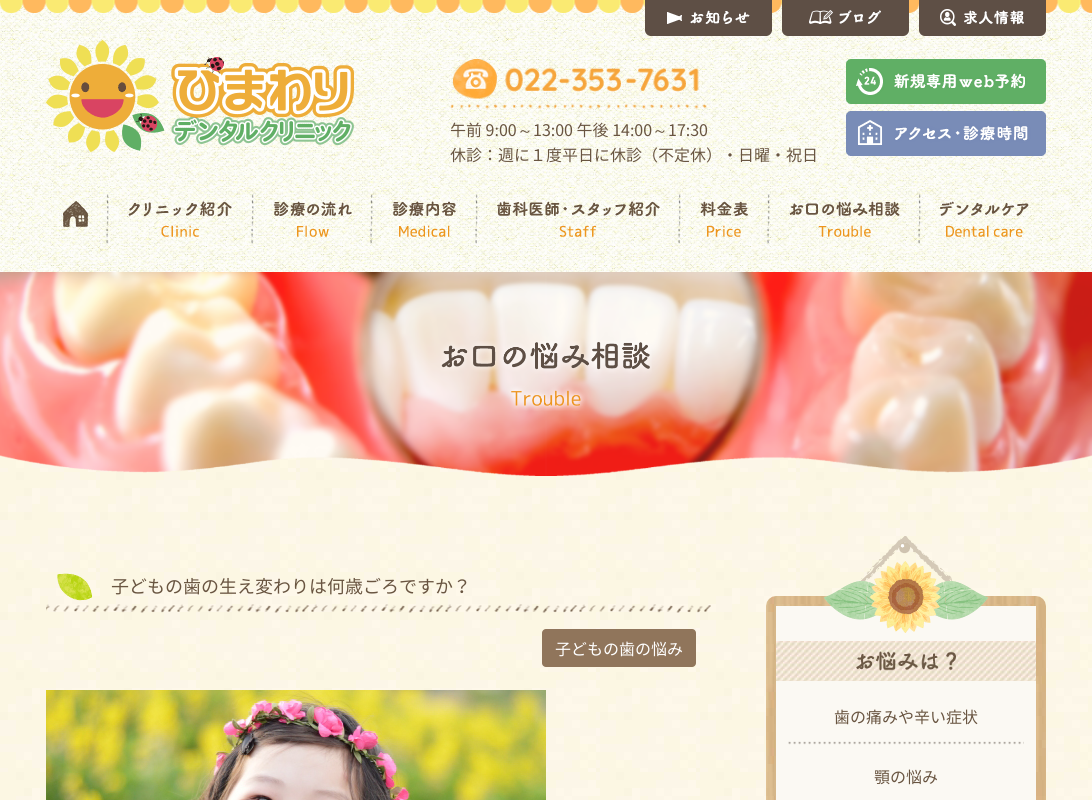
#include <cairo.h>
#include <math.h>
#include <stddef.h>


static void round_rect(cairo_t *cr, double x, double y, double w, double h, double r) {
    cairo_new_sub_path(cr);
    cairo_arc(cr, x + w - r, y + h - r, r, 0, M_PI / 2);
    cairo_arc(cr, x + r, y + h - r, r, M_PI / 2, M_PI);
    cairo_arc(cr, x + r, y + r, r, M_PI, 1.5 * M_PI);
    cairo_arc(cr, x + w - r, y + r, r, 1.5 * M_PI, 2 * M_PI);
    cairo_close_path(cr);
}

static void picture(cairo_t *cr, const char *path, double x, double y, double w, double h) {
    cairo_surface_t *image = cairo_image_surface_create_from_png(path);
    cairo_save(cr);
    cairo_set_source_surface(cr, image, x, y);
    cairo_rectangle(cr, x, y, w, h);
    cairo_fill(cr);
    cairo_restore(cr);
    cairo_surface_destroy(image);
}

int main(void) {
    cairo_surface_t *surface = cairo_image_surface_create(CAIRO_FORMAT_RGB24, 1092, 800);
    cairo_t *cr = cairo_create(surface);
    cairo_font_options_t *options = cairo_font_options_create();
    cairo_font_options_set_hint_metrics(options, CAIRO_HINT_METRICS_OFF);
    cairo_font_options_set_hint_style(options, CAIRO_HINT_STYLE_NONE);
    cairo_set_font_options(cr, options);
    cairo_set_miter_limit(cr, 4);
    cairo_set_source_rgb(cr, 1, 1, 1);
    cairo_paint(cr);
    picture(cr, "img1.png", 0, 0, 1092, 272);
    picture(cr, "img2.png", 0, 0, 1092, 13);
    picture(cr, "img3.png", 46, 40, 308, 112);
    picture(cr, "img4.png", 645, 0, 127, 36);
    picture(cr, "img5.png", 782, 0, 127, 36);
    picture(cr, "img6.png", 919, 0, 127, 36);
    picture(cr, "img7.png", 450, 59, 257, 51);
    cairo_select_font_face(cr, "Noto Sans JP", CAIRO_FONT_SLANT_NORMAL, CAIRO_FONT_WEIGHT_NORMAL);
    cairo_set_font_size(cr, 16);
    cairo_set_source_rgb(cr, 0.412, 0.333, 0.255);
    cairo_move_to(cr, 450, 136);
    cairo_show_text(cr, "午前 9:00");
    cairo_select_font_face(cr, "WenQuanYi Zen Hei Medium", CAIRO_FONT_SLANT_NORMAL, CAIRO_FONT_WEIGHT_NORMAL);
    cairo_move_to(cr, 517, 136);
    cairo_show_text(cr, "～");
    cairo_select_font_face(cr, "Noto Sans JP", CAIRO_FONT_SLANT_NORMAL, CAIRO_FONT_WEIGHT_NORMAL);
    cairo_move_to(cr, 533, 136);
    cairo_show_text(cr, "13:00 午後 14:00");
    cairo_select_font_face(cr, "WenQuanYi Zen Hei Medium", CAIRO_FONT_SLANT_NORMAL, CAIRO_FONT_WEIGHT_NORMAL);
    cairo_move_to(cr, 652, 136);
    cairo_show_text(cr, "～");
    cairo_select_font_face(cr, "Noto Sans JP", CAIRO_FONT_SLANT_NORMAL, CAIRO_FONT_WEIGHT_NORMAL);
    cairo_move_to(cr, 668, 136);
    cairo_show_text(cr, "17:30");
    cairo_move_to(cr, 450, 161);
    cairo_show_text(cr, "休診：週に１度平日に休診（不定休）・日曜・祝日");
    picture(cr, "img8.png", 846, 59, 200, 45);
    picture(cr, "img9.png", 846, 111, 200, 45);
    picture(cr, "img10.png", 63, 201, 25, 26);
    picture(cr, "img11.png", 106, 194, 3, 50);
    picture(cr, "img12.png", 128, 201, 104, 36);
    picture(cr, "img13.png", 251, 194, 3, 50);
    picture(cr, "img14.png", 273, 201, 79, 36);
    picture(cr, "img15.png", 370, 194, 3, 50);
    picture(cr, "img16.png", 392, 201, 64, 36);
    picture(cr, "img17.png", 475, 194, 3, 50);
    picture(cr, "img18.png", 497, 201, 163, 36);
    picture(cr, "img19.png", 678, 194, 3, 50);
    picture(cr, "img20.png", 700, 201, 48, 36);
    picture(cr, "img21.png", 767, 194, 3, 50);
    picture(cr, "img22.png", 789, 201, 111, 36);
    picture(cr, "img23.png", 918, 194, 3, 50);
    picture(cr, "img24.png", 940, 201, 89, 36);
    picture(cr, "img25.png", 0, 272, 1092, 528);
    picture(cr, "img26.png", 0, 272, 1092, 204);
    picture(cr, "img27.png", 440, 341, 212, 70);
    picture(cr, "img28.png", 46, 604, 665, 9);
    picture(cr, "img29.png", 57, 573, 35, 28);
    cairo_set_font_size(cr, 18);
    cairo_move_to(cr, 111, 593);
    cairo_show_text(cr, "子どもの歯の生え変わりは何歳ごろですか？");
    cairo_set_source_rgb(cr, 0.565, 0.459, 0.357);
    round_rect(cr, 542, 629, 154, 38, 4);
    cairo_fill(cr);
    cairo_set_font_size(cr, 16);
    cairo_set_source_rgb(cr, 1, 1, 1);
    cairo_move_to(cr, 555, 655);
    cairo_show_text(cr, "子どもの歯の悩み");
    picture(cr, "img30.png", 46, 690, 500, 110);
    picture(cr, "img31.png", 766, 596, 280, 204);
    cairo_set_source_rgb(cr, 0.984, 0.973, 0.953);
    cairo_rectangle(cr, 776, 606, 260, 194);
    cairo_fill(cr);
    picture(cr, "img32.png", 824, 536, 164, 97);
    picture(cr, "img33.png", 776, 641, 260, 40);
    picture(cr, "img34.png", 856, 651, 100, 20);
    cairo_set_source_rgb(cr, 0.412, 0.333, 0.255);
    cairo_move_to(cr, 834, 723);
    cairo_show_text(cr, "歯の痛みや辛い症状");
    picture(cr, "img35.png", 788, 741, 236, 4);
    cairo_move_to(cr, 874, 783);
    cairo_show_text(cr, "顎の悩み");
    cairo_surface_write_to_png(surface, "page.png");
    cairo_font_options_destroy(options);
    cairo_destroy(cr);
    cairo_surface_destroy(surface);
    return 0;
}
